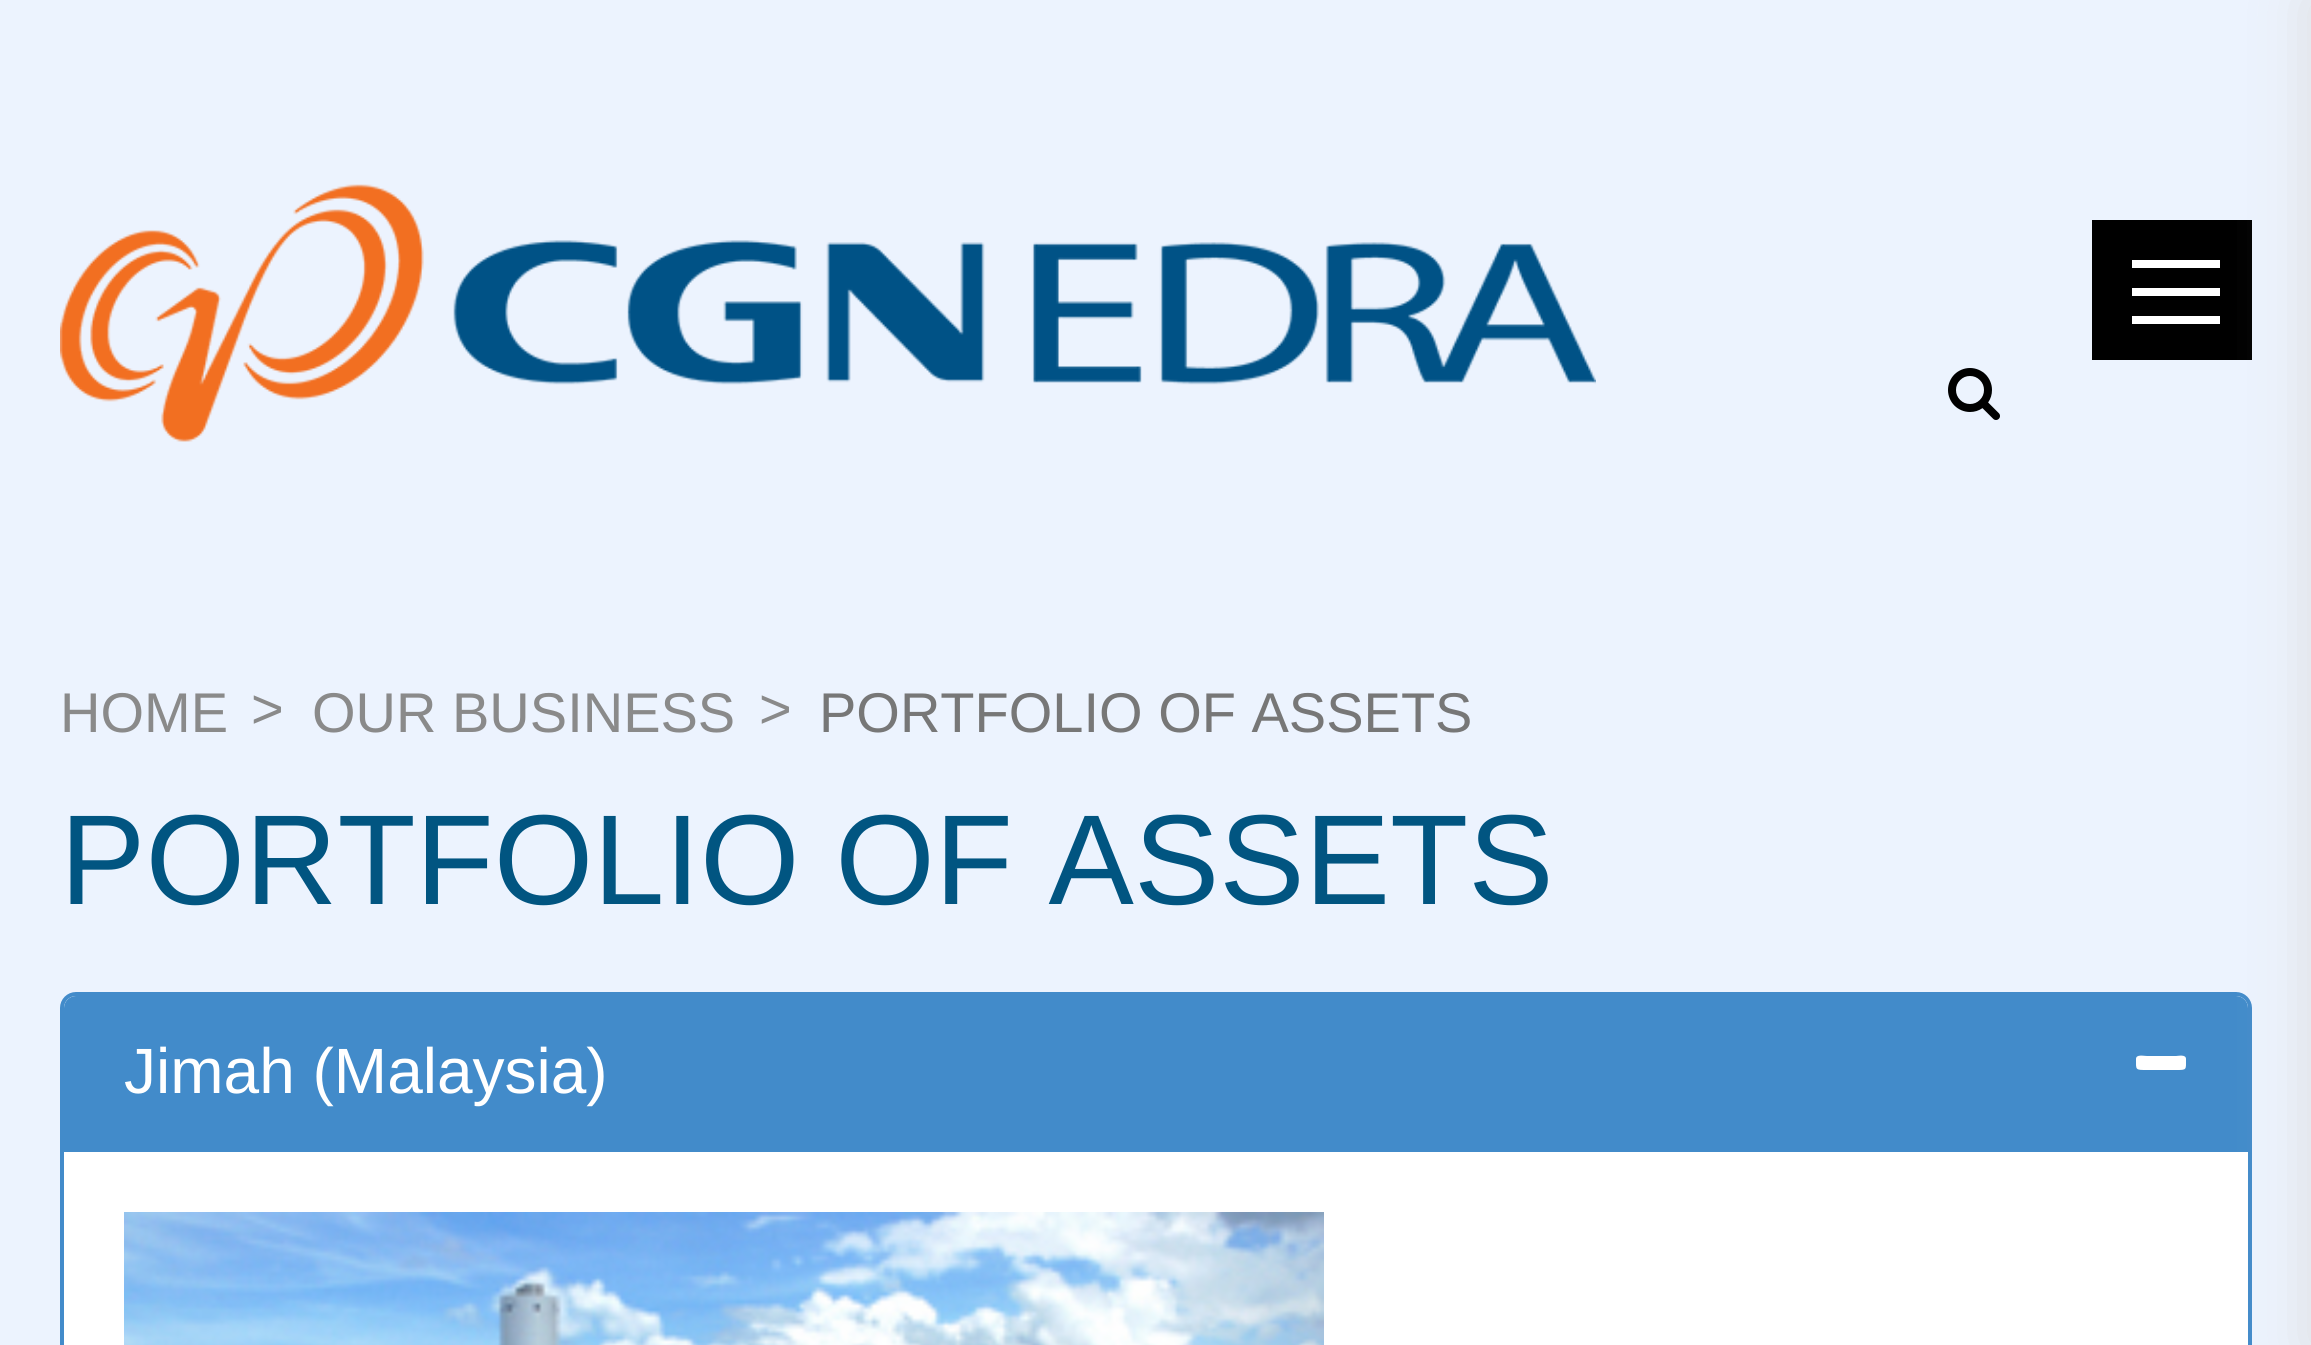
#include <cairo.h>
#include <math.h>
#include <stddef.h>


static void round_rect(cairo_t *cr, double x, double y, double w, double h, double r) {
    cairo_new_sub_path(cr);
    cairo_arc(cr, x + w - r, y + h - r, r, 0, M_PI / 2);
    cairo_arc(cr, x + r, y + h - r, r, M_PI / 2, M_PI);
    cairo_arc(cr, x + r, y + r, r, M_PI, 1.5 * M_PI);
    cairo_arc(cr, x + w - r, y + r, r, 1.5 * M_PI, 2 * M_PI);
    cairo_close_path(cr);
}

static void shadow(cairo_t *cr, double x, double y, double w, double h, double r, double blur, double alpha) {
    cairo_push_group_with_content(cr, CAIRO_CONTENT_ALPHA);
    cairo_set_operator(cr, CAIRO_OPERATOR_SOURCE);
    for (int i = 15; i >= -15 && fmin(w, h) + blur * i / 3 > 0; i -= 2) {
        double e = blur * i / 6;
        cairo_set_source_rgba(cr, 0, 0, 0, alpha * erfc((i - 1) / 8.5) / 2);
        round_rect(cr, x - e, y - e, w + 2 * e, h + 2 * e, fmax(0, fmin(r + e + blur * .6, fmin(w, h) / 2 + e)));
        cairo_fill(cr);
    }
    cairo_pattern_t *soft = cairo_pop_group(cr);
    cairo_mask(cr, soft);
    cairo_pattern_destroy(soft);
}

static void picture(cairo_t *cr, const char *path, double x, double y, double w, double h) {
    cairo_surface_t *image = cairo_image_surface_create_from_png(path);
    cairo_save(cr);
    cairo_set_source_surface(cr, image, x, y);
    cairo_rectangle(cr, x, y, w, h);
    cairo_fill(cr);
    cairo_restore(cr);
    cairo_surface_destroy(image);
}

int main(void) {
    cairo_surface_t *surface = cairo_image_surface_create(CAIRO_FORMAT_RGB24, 2311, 1345);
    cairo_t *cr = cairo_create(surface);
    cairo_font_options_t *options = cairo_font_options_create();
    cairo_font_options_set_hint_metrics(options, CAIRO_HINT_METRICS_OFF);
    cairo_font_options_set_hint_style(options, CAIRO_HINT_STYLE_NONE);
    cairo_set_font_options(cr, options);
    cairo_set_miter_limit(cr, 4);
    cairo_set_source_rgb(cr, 0.922, 0.953, 0.996);
    cairo_paint(cr);
    picture(cr, "img1.png", 1948, 368, 52, 52);
    cairo_set_source_rgb(cr, 0, 0, 0);
    cairo_rectangle(cr, 2092, 220, 160, 140);
    cairo_fill(cr);
    cairo_set_source_rgb(cr, 1, 1, 1);
    round_rect(cr, 62, 994, 2188, 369, 14);
    cairo_fill_preserve(cr);
    cairo_set_source_rgb(cr, 0.259, 0.545, 0.792);
    cairo_set_line_width(cr, 4);
    cairo_stroke(cr);
    cairo_new_path(cr);
    cairo_move_to(cr, 76, 996);
    cairo_line_to(cr, 2236, 996);
    cairo_curve_to(cr, 2242.5, 996, 2248, 1001.5, 2248, 1008);
    cairo_line_to(cr, 2248, 1148);
    cairo_line_to(cr, 64, 1148);
    cairo_line_to(cr, 64, 1008);
    cairo_curve_to(cr, 64, 1001.5, 69.5, 996, 76, 996);
    cairo_close_path(cr);
    cairo_fill(cr);
    cairo_rectangle(cr, 64, 1148, 2184, 4);
    cairo_fill(cr);
    cairo_set_source_rgb(cr, 0.867, 0.867, 0.867);
    shadow(cr, 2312, 0, 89, 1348, 0, 30, 1);
    picture(cr, "img2.png", 60, 184, 1536, 258);
    cairo_set_source_rgb(cr, 1, 1, 1);
    cairo_rectangle(cr, 2132, 260, 88, 8);
    cairo_fill(cr);
    cairo_rectangle(cr, 2132, 288, 88, 8);
    cairo_fill(cr);
    cairo_rectangle(cr, 2132, 316, 88, 8);
    cairo_fill(cr);
    cairo_select_font_face(cr, "Liberation Sans", CAIRO_FONT_SLANT_NORMAL, CAIRO_FONT_WEIGHT_NORMAL);
    cairo_set_font_size(cr, 56);
    cairo_set_source_rgb(cr, 0.541, 0.541, 0.541);
    cairo_move_to(cr, 60, 732);
    cairo_show_text(cr, "HOME");
    cairo_move_to(cr, 251, 728);
    cairo_show_text(cr, ">");
    cairo_move_to(cr, 312, 732);
    cairo_show_text(cr, "OUR BUSINESS");
    cairo_move_to(cr, 759, 728);
    cairo_show_text(cr, ">");
    cairo_set_source_rgb(cr, 0.467, 0.467, 0.467);
    cairo_move_to(cr, 819, 732);
    cairo_show_text(cr, "PORTFOLIO OF ASSETS");
    cairo_set_font_size(cr, 128);
    cairo_set_source_rgb(cr, 0.004, 0.333, 0.506);
    cairo_move_to(cr, 60, 904);
    cairo_show_text(cr, "PORTFOLIO OF ASSETS");
    cairo_set_font_size(cr, 64);
    cairo_set_source_rgb(cr, 1, 1, 1);
    cairo_move_to(cr, 124, 1093);
    cairo_show_text(cr, "Jimah (Malaysia)");
    cairo_new_path(cr);
    cairo_move_to(cr, 2186, 1059);
    cairo_curve_to(cr, 2186, 1070, 2187, 1070, 2176, 1070);
    cairo_line_to(cr, 2147, 1070);
    cairo_curve_to(cr, 2135, 1070, 2136, 1070, 2136, 1059);
    cairo_curve_to(cr, 2136, 1054, 2144, 1056, 2147, 1056);
    cairo_line_to(cr, 2176, 1056);
    cairo_curve_to(cr, 2178, 1056, 2186, 1054, 2186, 1059);
    cairo_close_path(cr);
    cairo_fill(cr);
    picture(cr, "img3.png", 124, 1212, 1200, 133);
    cairo_surface_write_to_png(surface, "page.png");
    cairo_font_options_destroy(options);
    cairo_destroy(cr);
    cairo_surface_destroy(surface);
    return 0;
}
